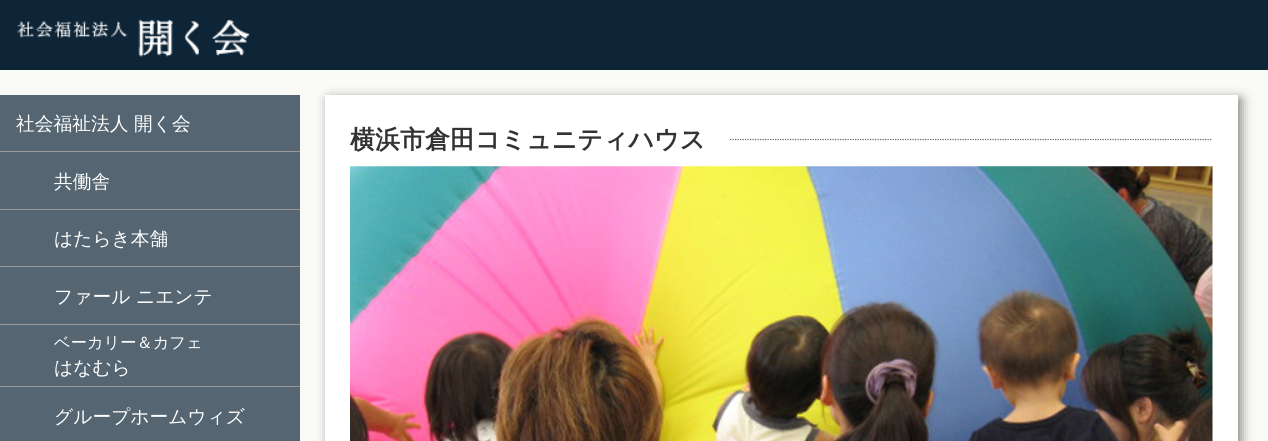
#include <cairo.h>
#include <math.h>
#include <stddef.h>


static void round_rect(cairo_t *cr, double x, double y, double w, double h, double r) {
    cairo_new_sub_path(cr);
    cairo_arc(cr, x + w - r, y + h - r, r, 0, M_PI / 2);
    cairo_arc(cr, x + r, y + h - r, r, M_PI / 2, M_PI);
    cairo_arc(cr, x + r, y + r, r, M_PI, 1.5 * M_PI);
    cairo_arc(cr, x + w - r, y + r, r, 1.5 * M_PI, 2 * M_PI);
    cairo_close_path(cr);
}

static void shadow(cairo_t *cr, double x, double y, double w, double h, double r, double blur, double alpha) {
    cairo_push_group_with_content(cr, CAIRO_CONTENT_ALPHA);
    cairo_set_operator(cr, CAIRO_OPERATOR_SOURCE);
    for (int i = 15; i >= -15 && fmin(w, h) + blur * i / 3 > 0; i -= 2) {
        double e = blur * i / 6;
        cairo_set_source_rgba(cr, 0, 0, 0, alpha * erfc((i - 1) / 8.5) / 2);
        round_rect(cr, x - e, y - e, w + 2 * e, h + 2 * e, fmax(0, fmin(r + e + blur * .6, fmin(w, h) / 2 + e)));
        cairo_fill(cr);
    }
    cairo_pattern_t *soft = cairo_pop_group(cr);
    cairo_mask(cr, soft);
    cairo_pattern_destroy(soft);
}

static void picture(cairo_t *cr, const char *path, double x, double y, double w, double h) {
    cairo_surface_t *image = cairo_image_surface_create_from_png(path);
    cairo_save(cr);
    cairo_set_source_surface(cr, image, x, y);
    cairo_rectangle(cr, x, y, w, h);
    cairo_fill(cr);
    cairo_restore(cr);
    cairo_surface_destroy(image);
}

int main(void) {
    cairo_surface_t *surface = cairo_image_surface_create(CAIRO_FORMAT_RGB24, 1268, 441);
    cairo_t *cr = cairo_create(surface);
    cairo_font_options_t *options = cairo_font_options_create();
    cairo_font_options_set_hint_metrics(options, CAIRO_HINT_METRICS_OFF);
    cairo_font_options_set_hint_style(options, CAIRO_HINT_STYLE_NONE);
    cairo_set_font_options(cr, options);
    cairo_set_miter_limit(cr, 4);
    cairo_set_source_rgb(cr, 0.98, 0.98, 0.961);
    cairo_paint(cr);
    cairo_set_source_rgb(cr, 0.055, 0.145, 0.22);
    cairo_rectangle(cr, 0, 0, 1268, 70);
    cairo_fill(cr);
    picture(cr, "img1.png", 17, 19, 234, 38);
    cairo_set_source_rgb(cr, 0.333, 0.396, 0.443);
    cairo_rectangle(cr, 0, 95, 300, 114);
    cairo_fill(cr);
    cairo_set_source_rgb(cr, 0.6, 0.6, 0.6);
    cairo_rectangle(cr, 0, 151, 300, 1);
    cairo_fill(cr);
    cairo_select_font_face(cr, "WenQuanYi Zen Hei Medium", CAIRO_FONT_SLANT_NORMAL, CAIRO_FONT_WEIGHT_NORMAL);
    cairo_set_font_size(cr, 18.75);
    cairo_set_source_rgb(cr, 1, 1, 1);
    cairo_move_to(cr, 16, 130);
    cairo_show_text(cr, "社会福祉法人 開く会");
    cairo_set_source_rgb(cr, 0.6, 0.6, 0.6);
    cairo_rectangle(cr, 0, 209, 300, 1);
    cairo_fill(cr);
    cairo_set_source_rgb(cr, 1, 1, 1);
    cairo_move_to(cr, 54, 188);
    cairo_show_text(cr, "共働舎");
    cairo_set_source_rgb(cr, 0.333, 0.396, 0.443);
    cairo_rectangle(cr, 0, 210, 300, 114);
    cairo_fill(cr);
    cairo_set_source_rgb(cr, 0.6, 0.6, 0.6);
    cairo_rectangle(cr, 0, 266, 300, 1);
    cairo_fill(cr);
    cairo_set_source_rgb(cr, 1, 1, 1);
    cairo_move_to(cr, 54, 245);
    cairo_show_text(cr, "はたらき本舗");
    cairo_set_source_rgb(cr, 0.6, 0.6, 0.6);
    cairo_rectangle(cr, 0, 324, 300, 1);
    cairo_fill(cr);
    cairo_set_source_rgb(cr, 1, 1, 1);
    cairo_move_to(cr, 54, 303);
    cairo_show_text(cr, "ファール ニエンテ");
    cairo_set_source_rgb(cr, 0.333, 0.396, 0.443);
    cairo_rectangle(cr, 0, 325, 300, 116);
    cairo_fill(cr);
    cairo_set_source_rgb(cr, 0.6, 0.6, 0.6);
    cairo_rectangle(cr, 0, 386, 300, 1);
    cairo_fill(cr);
    cairo_set_font_size(cr, 16.25);
    cairo_set_source_rgb(cr, 1, 1, 1);
    cairo_move_to(cr, 54, 348);
    cairo_show_text(cr, "ベーカリー＆カフェ");
    cairo_set_font_size(cr, 18.75);
    cairo_move_to(cr, 54, 374);
    cairo_show_text(cr, "はなむら");
    cairo_move_to(cr, 54, 423);
    cairo_show_text(cr, "グループホームウィズ");
    cairo_set_source_rgb(cr, 0, 0, 0);
    shadow(cr, 329, 99, 912, 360, 0, 6, 0.5);
    cairo_set_source_rgb(cr, 1, 1, 1);
    cairo_rectangle(cr, 325, 95, 913, 346);
    cairo_fill(cr);
    cairo_new_path(cr);
    cairo_move_to(cr, 350, 139.5);
    cairo_line_to(cr, 1212.5, 139.5);
    cairo_set_source_rgb(cr, 0.384, 0.4, 0.349);
    cairo_set_line_width(cr, 1.2);
    cairo_set_dash(cr, (double[]){1.25, 1.25}, 2, 0);
    cairo_stroke(cr);
    cairo_set_source_rgb(cr, 1, 1, 1);
    cairo_rectangle(cr, 350, 138, 379, 3);
    cairo_fill(cr);
    cairo_select_font_face(cr, "WenQuanYi Zen Hei", CAIRO_FONT_SLANT_NORMAL, CAIRO_FONT_WEIGHT_BOLD);
    cairo_set_font_size(cr, 25);
    cairo_set_source_rgb(cr, 0.2, 0.2, 0.2);
    cairo_move_to(cr, 350, 148);
    cairo_show_text(cr, "横浜市倉田コミュニティハウス");
    picture(cr, "img2.png", 350, 166, 863, 275);
    cairo_surface_write_to_png(surface, "page.png");
    cairo_font_options_destroy(options);
    cairo_destroy(cr);
    cairo_surface_destroy(surface);
    return 0;
}
